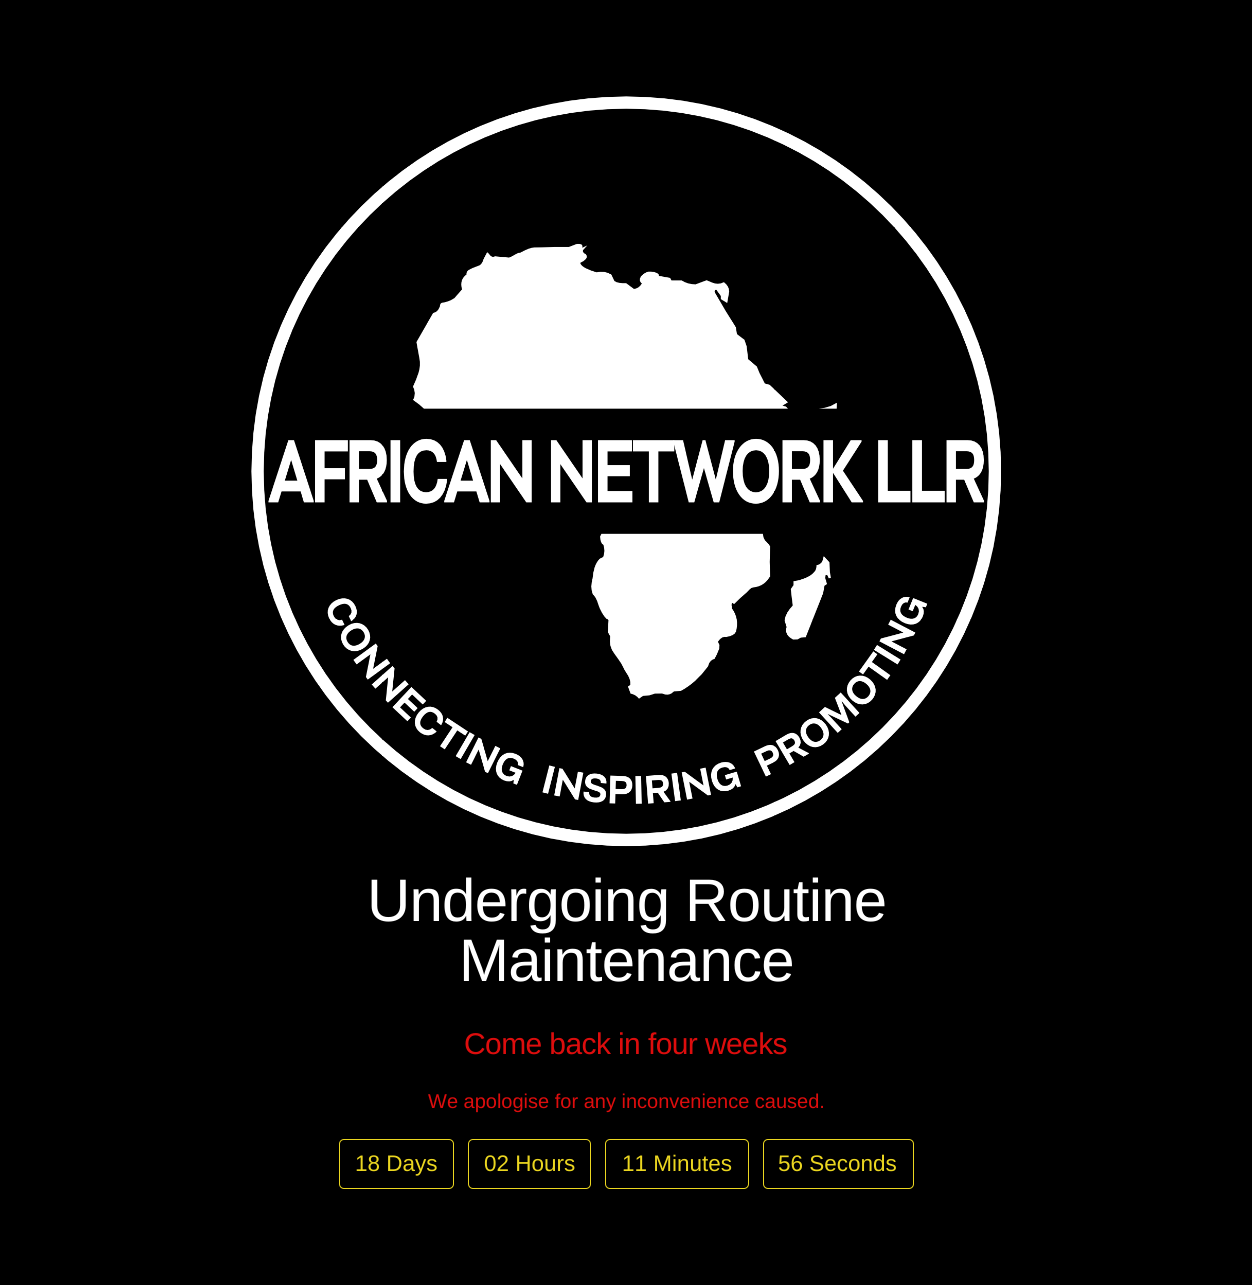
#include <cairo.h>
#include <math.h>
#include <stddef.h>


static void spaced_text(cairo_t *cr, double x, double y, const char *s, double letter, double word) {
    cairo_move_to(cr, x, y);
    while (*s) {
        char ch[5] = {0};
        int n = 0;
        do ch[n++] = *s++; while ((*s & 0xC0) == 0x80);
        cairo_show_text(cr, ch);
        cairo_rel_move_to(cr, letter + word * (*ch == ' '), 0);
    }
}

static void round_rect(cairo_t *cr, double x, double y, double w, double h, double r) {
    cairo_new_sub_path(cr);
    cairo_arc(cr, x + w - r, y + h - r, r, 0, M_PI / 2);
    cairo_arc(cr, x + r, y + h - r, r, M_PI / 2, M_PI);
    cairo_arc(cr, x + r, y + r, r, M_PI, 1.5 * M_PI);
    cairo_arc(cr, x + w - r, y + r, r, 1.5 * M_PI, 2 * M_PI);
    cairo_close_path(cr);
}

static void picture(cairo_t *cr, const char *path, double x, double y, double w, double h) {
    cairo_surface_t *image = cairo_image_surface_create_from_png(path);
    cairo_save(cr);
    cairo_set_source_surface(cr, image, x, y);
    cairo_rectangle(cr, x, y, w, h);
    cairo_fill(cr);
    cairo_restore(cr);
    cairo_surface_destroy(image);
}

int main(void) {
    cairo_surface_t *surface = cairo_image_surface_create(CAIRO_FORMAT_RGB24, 1252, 1285);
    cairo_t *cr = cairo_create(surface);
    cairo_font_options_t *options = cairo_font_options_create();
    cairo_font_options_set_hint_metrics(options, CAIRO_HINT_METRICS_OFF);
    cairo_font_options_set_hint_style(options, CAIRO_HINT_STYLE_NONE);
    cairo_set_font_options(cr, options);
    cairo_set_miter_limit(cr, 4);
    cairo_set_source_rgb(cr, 0, 0, 0);
    cairo_paint(cr);
    picture(cr, "img1.png", 251, 96, 750, 751);
    cairo_select_font_face(cr, "Liberation Sans", CAIRO_FONT_SLANT_NORMAL, CAIRO_FONT_WEIGHT_NORMAL);
    cairo_set_font_size(cr, 60);
    cairo_set_source_rgb(cr, 1, 1, 1);
    spaced_text(cr, 367, 921, "Undergoing Routine", -0.8, 0);
    spaced_text(cr, 459, 981, "Maintenance", -0.8, 0);
    cairo_set_font_size(cr, 30);
    cairo_set_source_rgb(cr, 0.867, 0.051, 0.051);
    spaced_text(cr, 464, 1054, "Come back in four weeks", -0.6, 0);
    cairo_set_font_size(cr, 20);
    cairo_move_to(cr, 428, 1108);
    cairo_show_text(cr, "We apologise for any inconvenience caused.");
    round_rect(cr, 339.5, 1139.5, 114, 49, 4.5);
    cairo_set_source_rgb(cr, 0.918, 0.839, 0.125);
    cairo_set_line_width(cr, 1);
    cairo_stroke(cr);
    cairo_set_font_size(cr, 22.5);
    cairo_move_to(cr, 355, 1171);
    cairo_show_text(cr, "18 Days");
    round_rect(cr, 468.5, 1139.5, 122, 49, 4.5);
    cairo_stroke(cr);
    cairo_move_to(cr, 484, 1171);
    cairo_show_text(cr, "02 Hours");
    round_rect(cr, 605.5, 1139.5, 143, 49, 4.5);
    cairo_stroke(cr);
    cairo_move_to(cr, 622, 1171);
    cairo_show_text(cr, "11 Minutes");
    round_rect(cr, 763.5, 1139.5, 150, 49, 4.5);
    cairo_stroke(cr);
    cairo_move_to(cr, 778, 1171);
    cairo_show_text(cr, "56 Seconds");
    cairo_surface_write_to_png(surface, "page.png");
    cairo_font_options_destroy(options);
    cairo_destroy(cr);
    cairo_surface_destroy(surface);
    return 0;
}
